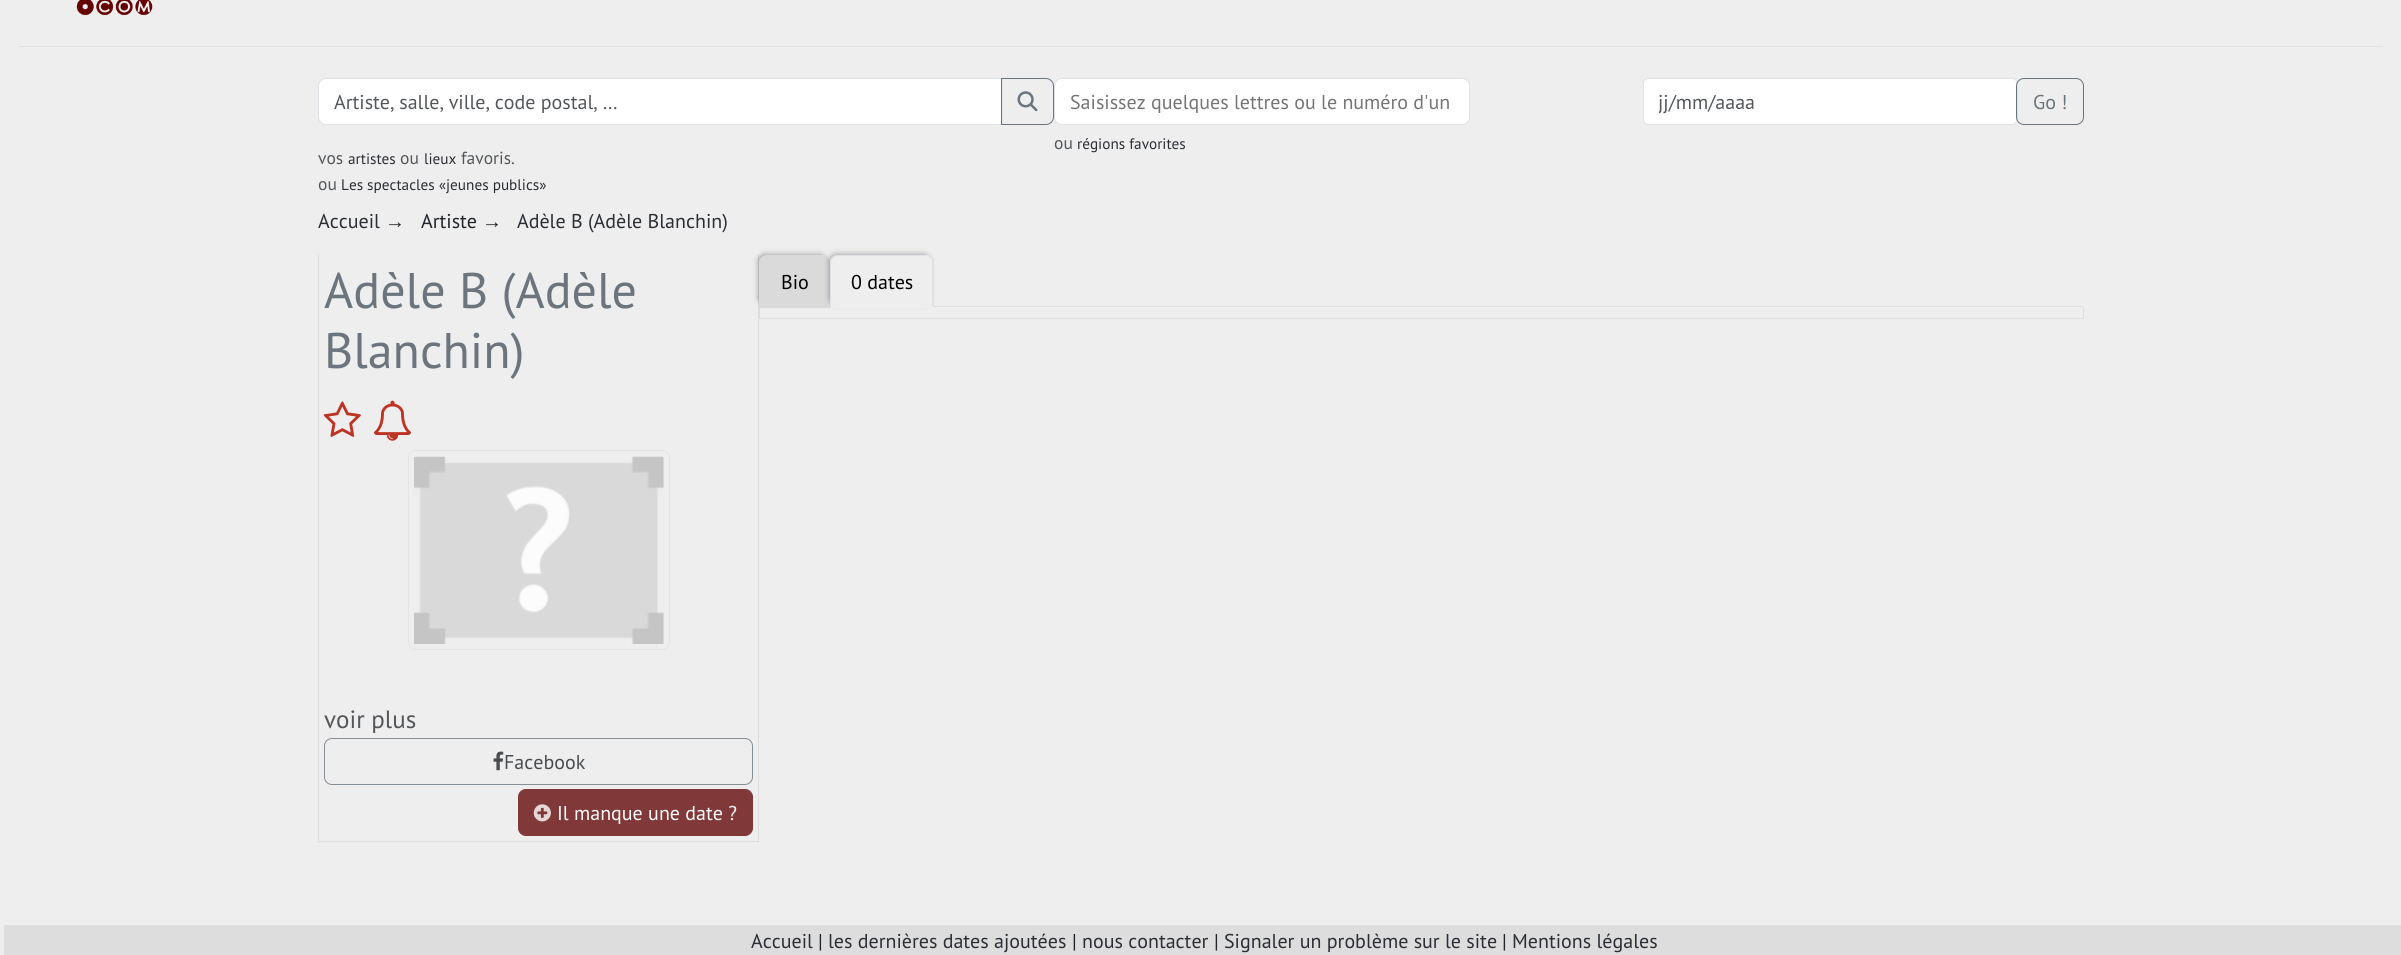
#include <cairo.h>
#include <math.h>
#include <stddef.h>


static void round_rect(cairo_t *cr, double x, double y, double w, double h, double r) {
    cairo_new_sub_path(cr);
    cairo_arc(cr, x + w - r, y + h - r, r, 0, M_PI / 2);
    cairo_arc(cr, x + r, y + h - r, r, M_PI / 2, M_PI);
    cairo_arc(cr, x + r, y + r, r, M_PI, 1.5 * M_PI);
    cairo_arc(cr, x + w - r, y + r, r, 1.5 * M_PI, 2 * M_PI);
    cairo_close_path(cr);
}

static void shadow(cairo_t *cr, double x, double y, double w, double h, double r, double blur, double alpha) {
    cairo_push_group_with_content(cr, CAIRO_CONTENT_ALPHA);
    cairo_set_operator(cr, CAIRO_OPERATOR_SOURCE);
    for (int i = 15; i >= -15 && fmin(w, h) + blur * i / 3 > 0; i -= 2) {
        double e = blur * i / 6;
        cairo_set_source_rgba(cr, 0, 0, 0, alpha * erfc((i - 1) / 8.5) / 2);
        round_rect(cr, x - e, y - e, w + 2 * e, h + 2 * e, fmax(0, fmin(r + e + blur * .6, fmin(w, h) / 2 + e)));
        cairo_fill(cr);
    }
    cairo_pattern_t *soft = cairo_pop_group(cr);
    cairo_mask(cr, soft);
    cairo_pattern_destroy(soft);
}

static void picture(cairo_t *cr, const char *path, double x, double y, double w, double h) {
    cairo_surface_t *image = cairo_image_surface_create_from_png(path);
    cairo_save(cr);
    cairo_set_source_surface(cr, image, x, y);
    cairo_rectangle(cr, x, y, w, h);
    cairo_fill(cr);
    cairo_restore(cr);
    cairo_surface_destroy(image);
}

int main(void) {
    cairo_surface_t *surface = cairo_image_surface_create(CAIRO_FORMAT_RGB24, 2401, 955);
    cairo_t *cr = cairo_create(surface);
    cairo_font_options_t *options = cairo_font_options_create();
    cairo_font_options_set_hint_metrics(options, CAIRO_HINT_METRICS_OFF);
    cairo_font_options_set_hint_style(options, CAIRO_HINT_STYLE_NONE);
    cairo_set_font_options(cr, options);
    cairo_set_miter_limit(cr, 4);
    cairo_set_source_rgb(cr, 0.933, 0.933, 0.933);
    cairo_paint(cr);
    cairo_set_source_rgb(cr, 0.871, 0.886, 0.902);
    cairo_rectangle(cr, 19, 46, 2364, 1);
    cairo_fill(cr);
    picture(cr, "img1.png", 76, 0, 77, 16);
    cairo_set_source_rgb(cr, 1, 1, 1);
    cairo_new_path(cr);
    cairo_move_to(cr, 325, 79);
    cairo_line_to(cr, 1001, 79);
    cairo_line_to(cr, 1001, 124);
    cairo_line_to(cr, 325, 124);
    cairo_curve_to(cr, 321.5, 124, 319, 121.5, 319, 118);
    cairo_line_to(cr, 319, 85);
    cairo_curve_to(cr, 319, 81.5, 321.5, 79, 325, 79);
    cairo_close_path(cr);
    cairo_fill(cr);
    cairo_new_path(cr);
    cairo_move_to(cr, 326, 78.5);
    cairo_line_to(cr, 1002.5, 78.5);
    cairo_line_to(cr, 1002.5, 124.5);
    cairo_line_to(cr, 326, 124.5);
    cairo_curve_to(cr, 322, 124.5, 318.5, 121, 318.5, 117);
    cairo_line_to(cr, 318.5, 86);
    cairo_curve_to(cr, 318.5, 82, 322, 78.5, 326, 78.5);
    cairo_close_path(cr);
    cairo_set_source_rgb(cr, 0.871, 0.886, 0.902);
    cairo_set_line_width(cr, 1);
    cairo_stroke(cr);
    cairo_select_font_face(cr, "PT Sans", CAIRO_FONT_SLANT_NORMAL, CAIRO_FONT_WEIGHT_NORMAL);
    cairo_set_font_size(cr, 20);
    cairo_set_source_rgb(cr, 0.329, 0.341, 0.353);
    cairo_move_to(cr, 334, 109);
    cairo_show_text(cr, "Artiste, salle, ville, code postal, …");
    cairo_new_path(cr);
    cairo_move_to(cr, 1001.5, 78.5);
    cairo_line_to(cr, 1046, 78.5);
    cairo_curve_to(cr, 1050, 78.5, 1053.5, 82, 1053.5, 86);
    cairo_line_to(cr, 1053.5, 117);
    cairo_curve_to(cr, 1053.5, 121, 1050, 124.5, 1046, 124.5);
    cairo_line_to(cr, 1001.5, 124.5);
    cairo_close_path(cr);
    cairo_set_source_rgb(cr, 0.424, 0.459, 0.49);
    cairo_stroke(cr);
    picture(cr, "img2.png", 1017, 91, 21, 21);
    cairo_set_font_size(cr, 17.5);
    cairo_set_source_rgb(cr, 0.329, 0.341, 0.353);
    cairo_move_to(cr, 318, 164);
    cairo_show_text(cr, "vos");
    cairo_set_font_size(cr, 15.25);
    cairo_set_source_rgb(cr, 0.169, 0.18, 0.204);
    cairo_move_to(cr, 348, 164);
    cairo_show_text(cr, "artistes");
    cairo_set_font_size(cr, 17.5);
    cairo_set_source_rgb(cr, 0.329, 0.341, 0.353);
    cairo_move_to(cr, 400, 164);
    cairo_show_text(cr, "ou");
    cairo_set_font_size(cr, 15.25);
    cairo_set_source_rgb(cr, 0.169, 0.18, 0.204);
    cairo_move_to(cr, 424, 164);
    cairo_show_text(cr, "lieux");
    cairo_set_font_size(cr, 17.5);
    cairo_set_source_rgb(cr, 0.329, 0.341, 0.353);
    cairo_move_to(cr, 461, 164);
    cairo_show_text(cr, "favoris.");
    cairo_move_to(cr, 318, 190);
    cairo_show_text(cr, "ou");
    cairo_set_font_size(cr, 15.25);
    cairo_set_source_rgb(cr, 0.169, 0.18, 0.204);
    cairo_move_to(cr, 341, 190);
    cairo_show_text(cr, "Les spectacles «jeunes publics»");
    cairo_set_source_rgb(cr, 1, 1, 1);
    round_rect(cr, 1054.5, 78.5, 415, 46, 7.5);
    cairo_fill_preserve(cr);
    cairo_set_source_rgb(cr, 0.871, 0.886, 0.902);
    cairo_stroke(cr);
    cairo_set_font_size(cr, 20);
    cairo_set_source_rgb(cr, 0.459, 0.459, 0.459);
    cairo_move_to(cr, 1070, 109);
    cairo_show_text(cr, "Saisissez quelques lettres ou le numéro d'un");
    cairo_set_font_size(cr, 17.5);
    cairo_set_source_rgb(cr, 0.329, 0.341, 0.353);
    cairo_move_to(cr, 1054, 149);
    cairo_show_text(cr, "ou");
    cairo_set_font_size(cr, 15.25);
    cairo_set_source_rgb(cr, 0.169, 0.18, 0.204);
    cairo_move_to(cr, 1077, 149);
    cairo_show_text(cr, "régions favorites");
    cairo_set_source_rgb(cr, 1, 1, 1);
    round_rect(cr, 1644, 79, 372, 45, 4);
    cairo_fill(cr);
    round_rect(cr, 1643.5, 78.5, 374, 46, 4.5);
    cairo_set_source_rgb(cr, 0.871, 0.886, 0.902);
    cairo_stroke(cr);
    cairo_save(cr);
    cairo_rectangle(cr, 1659, 89, 342, 25);
    cairo_clip(cr);
    cairo_set_font_size(cr, 20);
    cairo_set_source_rgb(cr, 0.329, 0.341, 0.353);
    cairo_move_to(cr, 1658, 109);
    cairo_show_text(cr, "jj/mm/aaaa");
    cairo_restore(cr);
    round_rect(cr, 2016.5, 78.5, 67, 46, 7.5);
    cairo_set_source_rgb(cr, 0.424, 0.459, 0.49);
    cairo_stroke(cr);
    cairo_set_font_size(cr, 20);
    cairo_move_to(cr, 2033, 109);
    cairo_show_text(cr, "Go !");
    cairo_set_source_rgb(cr, 0.169, 0.18, 0.204);
    cairo_move_to(cr, 318, 228);
    cairo_show_text(cr, "Accueil");
    cairo_select_font_face(cr, "Liberation Sans", CAIRO_FONT_SLANT_NORMAL, CAIRO_FONT_WEIGHT_NORMAL);
    cairo_set_source_rgb(cr, 0.129, 0.145, 0.161);
    cairo_move_to(cr, 385, 228);
    cairo_show_text(cr, "→");
    cairo_select_font_face(cr, "PT Sans", CAIRO_FONT_SLANT_NORMAL, CAIRO_FONT_WEIGHT_NORMAL);
    cairo_move_to(cr, 421, 228);
    cairo_show_text(cr, "Artiste");
    cairo_select_font_face(cr, "Liberation Sans", CAIRO_FONT_SLANT_NORMAL, CAIRO_FONT_WEIGHT_NORMAL);
    cairo_move_to(cr, 482, 228);
    cairo_show_text(cr, "→");
    cairo_select_font_face(cr, "PT Sans", CAIRO_FONT_SLANT_NORMAL, CAIRO_FONT_WEIGHT_NORMAL);
    cairo_set_source_rgb(cr, 0.169, 0.18, 0.204);
    cairo_move_to(cr, 517, 228);
    cairo_show_text(cr, "Adèle B (Adèle Blanchin)");
    cairo_set_source_rgb(cr, 0.867, 0.867, 0.867);
    cairo_rectangle(cr, 758, 255, 1, 588);
    cairo_fill(cr);
    cairo_rectangle(cr, 318, 841, 441, 1);
    cairo_fill(cr);
    cairo_rectangle(cr, 318, 255, 1, 588);
    cairo_fill(cr);
    cairo_set_font_size(cr, 50);
    cairo_set_source_rgb(cr, 0.424, 0.459, 0.49);
    cairo_move_to(cr, 324, 308);
    cairo_show_text(cr, "Adèle B (Adèle");
    cairo_move_to(cr, 324, 368);
    cairo_show_text(cr, "Blanchin)");
    picture(cr, "img3.png", 323, 401, 38, 36);
    picture(cr, "img4.png", 374, 400, 37, 41);
    round_rect(cr, 408.5, 450.5, 261, 199, 7.5);
    cairo_set_source_rgb(cr, 0.882, 0.894, 0.91);
    cairo_stroke(cr);
    picture(cr, "img5.png", 414, 456, 250, 188);
    cairo_set_font_size(cr, 25);
    cairo_set_source_rgb(cr, 0.329, 0.341, 0.353);
    cairo_move_to(cr, 324, 728);
    cairo_show_text(cr, "voir plus");
    round_rect(cr, 324.5, 738.5, 428, 46, 7.5);
    cairo_set_source_rgb(cr, 0.525, 0.553, 0.58);
    cairo_stroke(cr);
    picture(cr, "img6.png", 493, 751, 11, 20);
    cairo_set_font_size(cr, 20);
    cairo_set_source_rgb(cr, 0.29, 0.302, 0.314);
    cairo_move_to(cr, 504, 769);
    cairo_show_text(cr, "Facebook");
    cairo_set_source_rgb(cr, 0.502, 0.22, 0.224);
    round_rect(cr, 518.5, 789.5, 234, 46, 7.5);
    cairo_fill_preserve(cr);
    cairo_stroke(cr);
    picture(cr, "img7.png", 533, 804, 18, 18);
    cairo_set_source_rgb(cr, 0.988, 0.988, 0.988);
    cairo_move_to(cr, 557, 820);
    cairo_show_text(cr, "Il manque une date ?");
    cairo_set_source_rgb(cr, 0.871, 0.886, 0.902);
    cairo_rectangle(cr, 934, 306, 1150, 1);
    cairo_fill(cr);
    cairo_set_source_rgb(cr, 0.867, 0.867, 0.867);
    cairo_rectangle(cr, 2083, 308, 1, 11);
    cairo_fill(cr);
    cairo_rectangle(cr, 759, 318, 1325, 1);
    cairo_fill(cr);
    cairo_rectangle(cr, 759, 308, 1, 11);
    cairo_fill(cr);
    cairo_set_source_rgb(cr, 0, 0, 0);
    shadow(cr, 759, 255, 66, 48, 5, 3, 0.4);
    cairo_set_source_rgb(cr, 0.855, 0.855, 0.855);
    cairo_new_path(cr);
    cairo_move_to(cr, 767, 255);
    cairo_line_to(cr, 822, 255);
    cairo_curve_to(cr, 826.5, 255, 830, 258.5, 830, 263);
    cairo_line_to(cr, 830, 308);
    cairo_line_to(cr, 759, 308);
    cairo_line_to(cr, 759, 263);
    cairo_curve_to(cr, 759, 258.5, 762.5, 255, 767, 255);
    cairo_close_path(cr);
    cairo_fill(cr);
    cairo_set_source_rgb(cr, 0, 0, 0);
    cairo_move_to(cr, 781, 289);
    cairo_show_text(cr, "Bio");
    cairo_set_source_rgb(cr, 0, 0, 0);
    shadow(cr, 830, 255, 99, 48, 5, 3, 0.4);
    cairo_set_source_rgb(cr, 0.933, 0.933, 0.933);
    cairo_new_path(cr);
    cairo_move_to(cr, 838, 255);
    cairo_line_to(cr, 926, 255);
    cairo_curve_to(cr, 930.5, 255, 934, 258.5, 934, 263);
    cairo_line_to(cr, 934, 308);
    cairo_line_to(cr, 830, 308);
    cairo_line_to(cr, 830, 263);
    cairo_curve_to(cr, 830, 258.5, 833.5, 255, 838, 255);
    cairo_close_path(cr);
    cairo_fill(cr);
    cairo_set_source_rgb(cr, 0.871, 0.886, 0.902);
    cairo_new_path(cr);
    cairo_move_to(cr, 838, 255);
    cairo_curve_to(cr, 835, 255, 833, 256, 832, 257);
    cairo_line_to(cr, 833, 258);
    cairo_curve_to(cr, 834, 257, 836, 256, 838, 256);
    cairo_line_to(cr, 926, 256);
    cairo_curve_to(cr, 928, 256, 930, 257, 931, 258);
    cairo_line_to(cr, 932, 257);
    cairo_curve_to(cr, 930, 256, 928, 255, 926, 255);
    cairo_close_path(cr);
    cairo_fill(cr);
    cairo_new_path(cr);
    cairo_move_to(cr, 932, 257);
    cairo_line_to(cr, 934, 260);
    cairo_line_to(cr, 934, 308);
    cairo_line_to(cr, 932, 306);
    cairo_line_to(cr, 932, 262);
    cairo_curve_to(cr, 932, 261, 932, 259, 931, 258);
    cairo_close_path(cr);
    cairo_fill(cr);
    cairo_set_source_rgb(cr, 0.933, 0.933, 0.933);
    cairo_new_path(cr);
    cairo_move_to(cr, 934, 308);
    cairo_line_to(cr, 932, 306);
    cairo_line_to(cr, 832, 306);
    cairo_line_to(cr, 830, 308);
    cairo_close_path(cr);
    cairo_fill(cr);
    cairo_set_source_rgb(cr, 0.871, 0.886, 0.902);
    cairo_new_path(cr);
    cairo_move_to(cr, 830, 308);
    cairo_line_to(cr, 832, 306);
    cairo_line_to(cr, 831, 306);
    cairo_line_to(cr, 831, 262);
    cairo_curve_to(cr, 831, 261, 832, 259, 833, 258);
    cairo_line_to(cr, 832, 257);
    cairo_curve_to(cr, 831, 258, 830, 260, 830, 262);
    cairo_close_path(cr);
    cairo_fill(cr);
    cairo_set_source_rgb(cr, 0, 0, 0);
    cairo_move_to(cr, 851, 289);
    cairo_show_text(cr, "0 dates");
    cairo_set_source_rgb(cr, 0.867, 0.867, 0.867);
    cairo_rectangle(cr, 4, 925, 2397, 30);
    cairo_fill(cr);
    cairo_set_source_rgb(cr, 0.169, 0.18, 0.204);
    cairo_move_to(cr, 751, 948);
    cairo_show_text(cr, "Accueil");
    cairo_set_source_rgb(cr, 0.129, 0.145, 0.161);
    cairo_move_to(cr, 818, 948);
    cairo_show_text(cr, "|");
    cairo_set_source_rgb(cr, 0.169, 0.18, 0.204);
    cairo_move_to(cr, 828, 948);
    cairo_show_text(cr, "les dernières dates ajoutées");
    cairo_set_source_rgb(cr, 0.129, 0.145, 0.161);
    cairo_move_to(cr, 1072, 948);
    cairo_show_text(cr, "|");
    cairo_set_source_rgb(cr, 0.169, 0.18, 0.204);
    cairo_move_to(cr, 1082, 948);
    cairo_show_text(cr, "nous contacter");
    cairo_set_source_rgb(cr, 0.129, 0.145, 0.161);
    cairo_move_to(cr, 1214, 948);
    cairo_show_text(cr, "|");
    cairo_set_source_rgb(cr, 0.169, 0.18, 0.204);
    cairo_move_to(cr, 1224, 948);
    cairo_show_text(cr, "Signaler un problème sur le site");
    cairo_set_source_rgb(cr, 0.129, 0.145, 0.161);
    cairo_move_to(cr, 1502, 948);
    cairo_show_text(cr, "|");
    cairo_set_source_rgb(cr, 0.169, 0.18, 0.204);
    cairo_move_to(cr, 1512, 948);
    cairo_show_text(cr, "Mentions légales");
    cairo_surface_write_to_png(surface, "page.png");
    cairo_font_options_destroy(options);
    cairo_destroy(cr);
    cairo_surface_destroy(surface);
    return 0;
}
